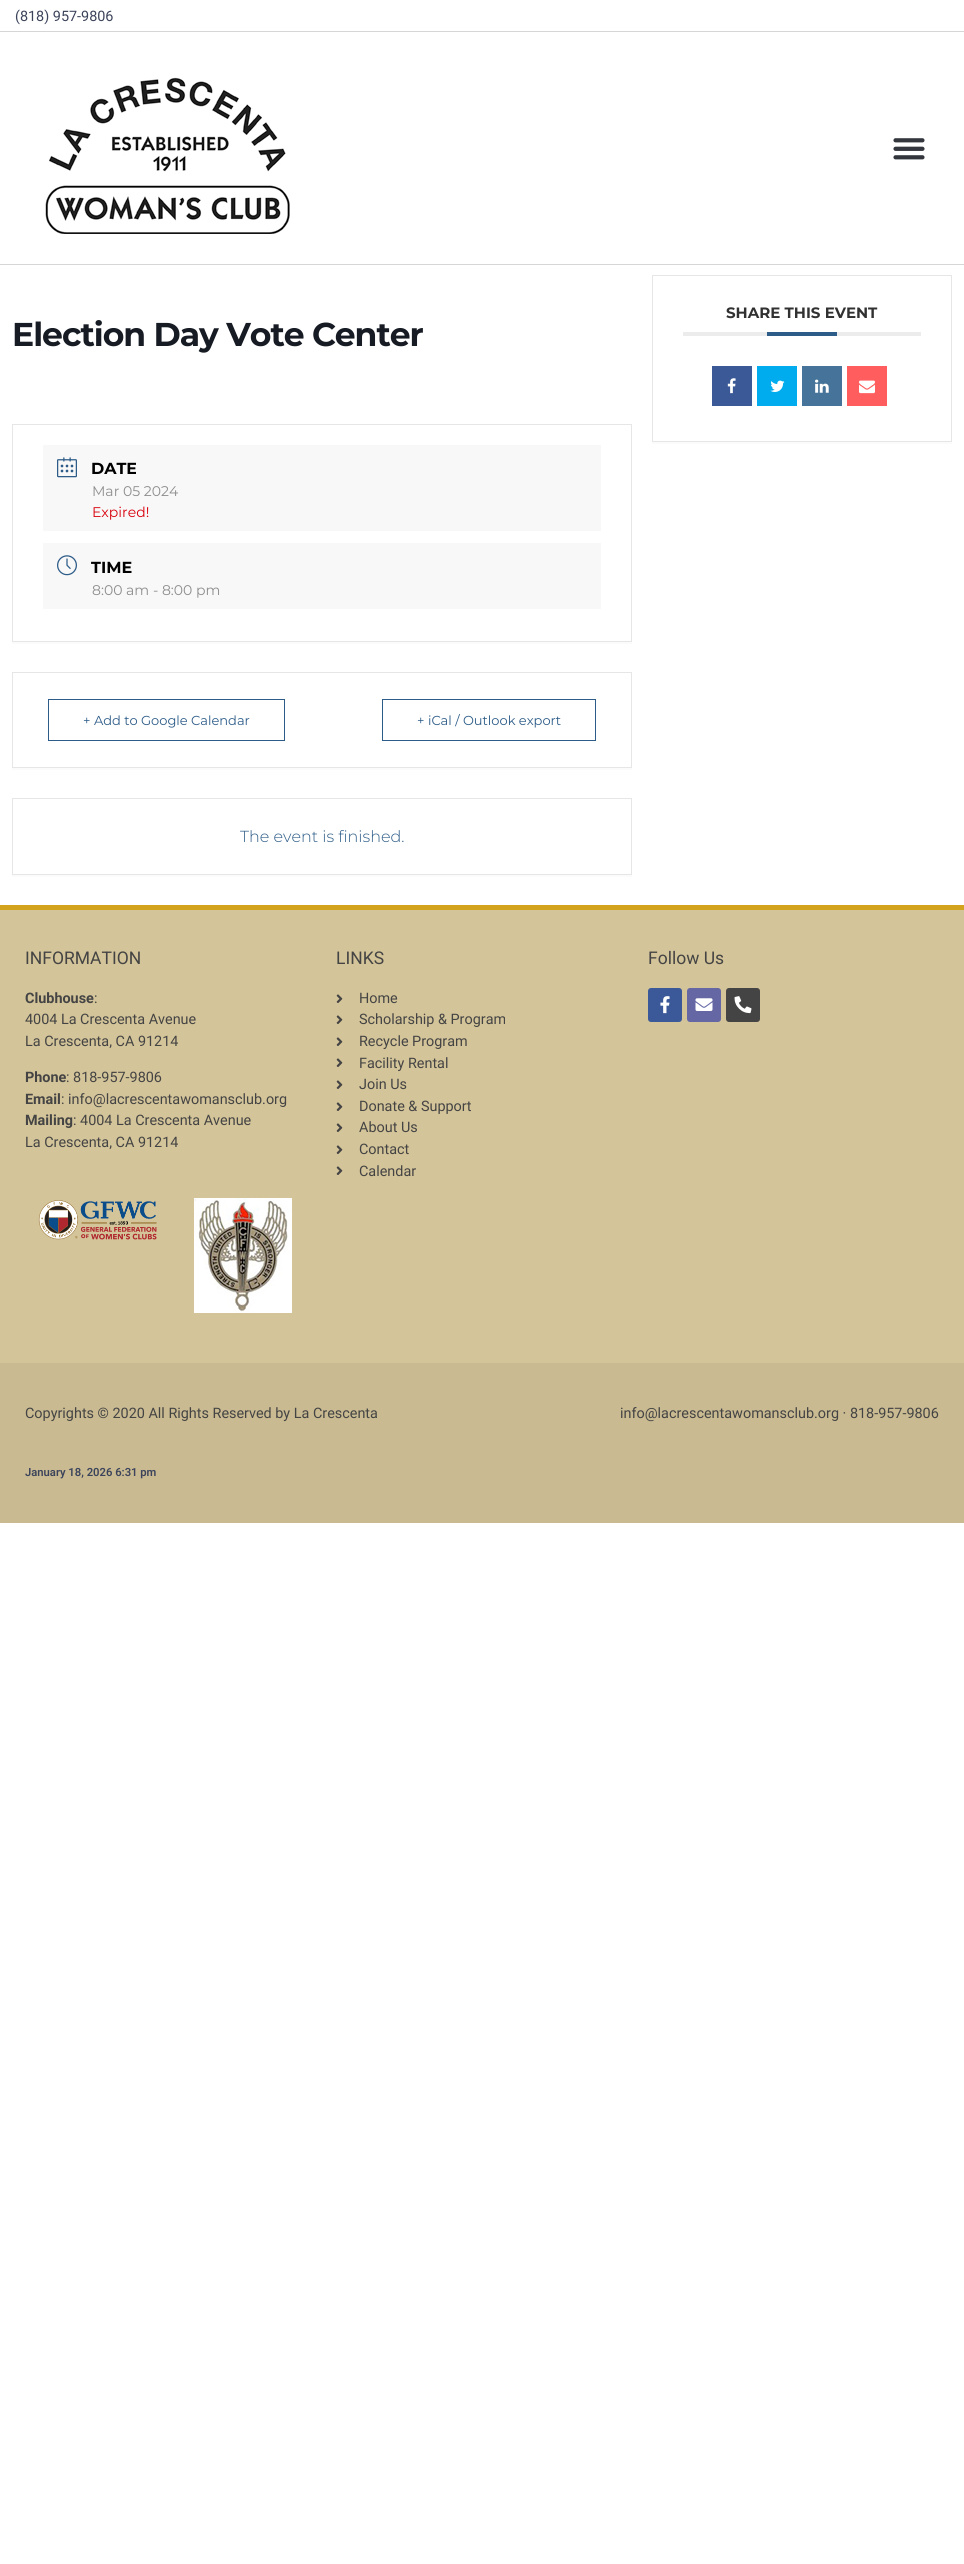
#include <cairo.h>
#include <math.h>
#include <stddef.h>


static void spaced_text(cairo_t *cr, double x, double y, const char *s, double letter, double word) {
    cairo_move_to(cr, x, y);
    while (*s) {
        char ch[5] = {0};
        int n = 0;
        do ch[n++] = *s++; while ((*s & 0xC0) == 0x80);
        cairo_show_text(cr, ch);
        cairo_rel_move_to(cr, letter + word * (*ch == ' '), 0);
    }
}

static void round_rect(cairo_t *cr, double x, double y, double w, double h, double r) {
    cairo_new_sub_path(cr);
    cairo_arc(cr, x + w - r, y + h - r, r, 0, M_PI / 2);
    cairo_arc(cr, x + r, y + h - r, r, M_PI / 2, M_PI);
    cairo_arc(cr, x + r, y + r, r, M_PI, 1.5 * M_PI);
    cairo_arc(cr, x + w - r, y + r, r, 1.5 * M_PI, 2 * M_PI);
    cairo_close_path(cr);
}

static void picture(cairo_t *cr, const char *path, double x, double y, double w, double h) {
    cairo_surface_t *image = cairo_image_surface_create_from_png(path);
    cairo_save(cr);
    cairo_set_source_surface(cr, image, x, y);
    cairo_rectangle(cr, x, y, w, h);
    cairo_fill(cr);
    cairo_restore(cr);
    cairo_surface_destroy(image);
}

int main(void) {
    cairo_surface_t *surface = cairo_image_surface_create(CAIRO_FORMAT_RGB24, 964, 2564);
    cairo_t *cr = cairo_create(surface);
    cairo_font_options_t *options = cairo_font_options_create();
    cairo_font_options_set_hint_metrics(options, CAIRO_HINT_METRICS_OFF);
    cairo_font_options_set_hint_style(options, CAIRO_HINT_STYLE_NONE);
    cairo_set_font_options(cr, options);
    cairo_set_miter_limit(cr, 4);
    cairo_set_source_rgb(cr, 1, 1, 1);
    cairo_paint(cr);
    cairo_select_font_face(cr, "Roboto", CAIRO_FONT_SLANT_NORMAL, CAIRO_FONT_WEIGHT_NORMAL);
    cairo_set_font_size(cr, 14.4);
    cairo_set_source_rgb(cr, 0.235, 0.267, 0.357);
    cairo_move_to(cr, 15, 21);
    cairo_show_text(cr, "(818) 957-9806");
    cairo_set_source_rgb(cr, 0.839, 0.839, 0.839);
    cairo_rectangle(cr, 0, 31, 964, 1);
    cairo_fill(cr);
    cairo_rectangle(cr, 0, 264, 964, 1);
    cairo_fill(cr);
    picture(cr, "img1.png", 45, 77, 245, 157);
    picture(cr, "img2.png", 893, 138, 32, 22);
    cairo_set_source_rgb(cr, 0.984, 0.984, 0.984);
    cairo_rectangle(cr, 652, 442, 300, 2);
    cairo_fill(cr);
    cairo_rectangle(cr, 652.5, 275.5, 299, 166);
    cairo_set_source_rgb(cr, 0.902, 0.902, 0.902);
    cairo_set_line_width(cr, 1);
    cairo_stroke(cr);
    cairo_set_source_rgb(cr, 0.922, 0.922, 0.922);
    cairo_rectangle(cr, 683, 332, 238, 4);
    cairo_fill(cr);
    cairo_select_font_face(cr, "Montserrat", CAIRO_FONT_SLANT_NORMAL, CAIRO_FONT_WEIGHT_BOLD);
    cairo_set_font_size(cr, 15);
    cairo_set_source_rgb(cr, 0.192, 0.192, 0.192);
    cairo_move_to(cr, 726, 318);
    cairo_show_text(cr, "SHARE THIS EVENT");
    cairo_set_source_rgb(cr, 0.176, 0.361, 0.533);
    cairo_rectangle(cr, 767, 332, 70, 4);
    cairo_fill(cr);
    cairo_set_source_rgb(cr, 0.231, 0.349, 0.588);
    cairo_rectangle(cr, 712, 366, 40, 40);
    cairo_fill(cr);
    picture(cr, "img3.png", 727, 378, 9, 16);
    cairo_set_source_rgb(cr, 0, 0.675, 0.933);
    cairo_rectangle(cr, 757, 366, 40, 40);
    cairo_fill(cr);
    picture(cr, "img4.png", 770, 380, 15, 12);
    cairo_set_source_rgb(cr, 0.271, 0.451, 0.6);
    cairo_rectangle(cr, 802, 366, 40, 40);
    cairo_fill(cr);
    picture(cr, "img5.png", 815, 379, 14, 14);
    cairo_set_source_rgb(cr, 1, 0.365, 0.369);
    cairo_rectangle(cr, 847, 366, 40, 40);
    cairo_fill(cr);
    picture(cr, "img6.png", 859, 380, 16, 14);
    cairo_set_font_size(cr, 33);
    cairo_set_source_rgb(cr, 0.09, 0.11, 0.141);
    spaced_text(cr, 12, 346, "Election Day Vote Center", -1, 0);
    cairo_set_source_rgb(cr, 0.984, 0.984, 0.984);
    cairo_rectangle(cr, 12, 642, 620, 2);
    cairo_fill(cr);
    cairo_rectangle(cr, 12.5, 424.5, 619, 217);
    cairo_set_source_rgb(cr, 0.902, 0.902, 0.902);
    cairo_stroke(cr);
    cairo_set_source_rgb(cr, 0.969, 0.969, 0.969);
    cairo_rectangle(cr, 43, 445, 558, 86);
    cairo_fill(cr);
    picture(cr, "img7.png", 57, 457, 20, 21);
    cairo_set_font_size(cr, 16);
    cairo_set_source_rgb(cr, 0, 0, 0);
    cairo_move_to(cr, 91, 474);
    cairo_show_text(cr, "DATE");
    cairo_select_font_face(cr, "Montserrat", CAIRO_FONT_SLANT_NORMAL, CAIRO_FONT_WEIGHT_NORMAL);
    cairo_set_font_size(cr, 14);
    cairo_set_source_rgb(cr, 0.553, 0.553, 0.553);
    cairo_move_to(cr, 92, 496);
    cairo_show_text(cr, "Mar 05 2024");
    cairo_set_source_rgb(cr, 0.847, 0, 0.047);
    cairo_move_to(cr, 92, 517);
    cairo_show_text(cr, "Expired!");
    cairo_set_source_rgb(cr, 0.969, 0.969, 0.969);
    cairo_rectangle(cr, 43, 543, 558, 66);
    cairo_fill(cr);
    picture(cr, "img8.png", 57, 555, 20, 21);
    cairo_select_font_face(cr, "Montserrat", CAIRO_FONT_SLANT_NORMAL, CAIRO_FONT_WEIGHT_BOLD);
    cairo_set_font_size(cr, 16);
    cairo_set_source_rgb(cr, 0, 0, 0);
    cairo_move_to(cr, 91, 573);
    cairo_show_text(cr, "TIME");
    cairo_select_font_face(cr, "Montserrat", CAIRO_FONT_SLANT_NORMAL, CAIRO_FONT_WEIGHT_NORMAL);
    cairo_set_font_size(cr, 14);
    cairo_set_source_rgb(cr, 0.553, 0.553, 0.553);
    cairo_move_to(cr, 92, 595);
    cairo_show_text(cr, "8:00 am - 8:00 pm");
    cairo_set_source_rgb(cr, 0.984, 0.984, 0.984);
    cairo_rectangle(cr, 12, 768, 620, 2);
    cairo_fill(cr);
    cairo_rectangle(cr, 12.5, 672.5, 619, 95);
    cairo_set_source_rgb(cr, 0.902, 0.902, 0.902);
    cairo_stroke(cr);
    cairo_rectangle(cr, 48.5, 699.5, 236, 41);
    cairo_set_source_rgb(cr, 0.176, 0.361, 0.533);
    cairo_stroke(cr);
    cairo_set_font_size(cr, 13);
    cairo_move_to(cr, 83, 725);
    cairo_show_text(cr, "+ Add to Google Calendar");
    cairo_rectangle(cr, 382.5, 699.5, 213, 41);
    cairo_stroke(cr);
    cairo_move_to(cr, 417, 725);
    cairo_show_text(cr, "+ iCal / Outlook export");
    cairo_set_source_rgb(cr, 0.984, 0.984, 0.984);
    cairo_rectangle(cr, 12, 875, 620, 2);
    cairo_fill(cr);
    cairo_rectangle(cr, 12.5, 798.5, 619, 76);
    cairo_set_source_rgb(cr, 0.902, 0.902, 0.902);
    cairo_stroke(cr);
    cairo_select_font_face(cr, "Montserrat Light", CAIRO_FONT_SLANT_NORMAL, CAIRO_FONT_WEIGHT_NORMAL);
    cairo_set_font_size(cr, 16);
    cairo_set_source_rgb(cr, 0.176, 0.361, 0.533);
    cairo_move_to(cr, 240, 842);
    cairo_show_text(cr, "The event is finished.");
    cairo_set_source_rgb(cr, 0.831, 0.769, 0.6);
    cairo_rectangle(cr, 0, 910, 964, 453);
    cairo_fill(cr);
    cairo_set_source_rgb(cr, 0.827, 0.639, 0.114);
    cairo_rectangle(cr, 0, 905, 964, 5);
    cairo_fill(cr);
    cairo_select_font_face(cr, "Roboto", CAIRO_FONT_SLANT_NORMAL, CAIRO_FONT_WEIGHT_NORMAL);
    cairo_set_font_size(cr, 17.5);
    cairo_set_source_rgb(cr, 0.267, 0.267, 0.267);
    cairo_move_to(cr, 25, 964);
    cairo_show_text(cr, "INFORMATION");
    cairo_select_font_face(cr, "Roboto", CAIRO_FONT_SLANT_NORMAL, CAIRO_FONT_WEIGHT_BOLD);
    cairo_set_font_size(cr, 14.4);
    cairo_move_to(cr, 25, 1003);
    cairo_show_text(cr, "Clubhouse");
    cairo_select_font_face(cr, "Roboto", CAIRO_FONT_SLANT_NORMAL, CAIRO_FONT_WEIGHT_NORMAL);
    cairo_move_to(cr, 94, 1003);
    cairo_show_text(cr, ":");
    cairo_move_to(cr, 25, 1024);
    cairo_show_text(cr, "4004 La Crescenta Avenue");
    cairo_move_to(cr, 25, 1046);
    cairo_show_text(cr, "La Crescenta, CA 91214");
    cairo_select_font_face(cr, "Roboto", CAIRO_FONT_SLANT_NORMAL, CAIRO_FONT_WEIGHT_BOLD);
    cairo_move_to(cr, 25, 1082);
    cairo_show_text(cr, "Phone");
    cairo_select_font_face(cr, "Roboto", CAIRO_FONT_SLANT_NORMAL, CAIRO_FONT_WEIGHT_NORMAL);
    cairo_move_to(cr, 66, 1082);
    cairo_show_text(cr, ": 818-957-9806");
    cairo_select_font_face(cr, "Roboto", CAIRO_FONT_SLANT_NORMAL, CAIRO_FONT_WEIGHT_BOLD);
    cairo_move_to(cr, 25, 1104);
    cairo_show_text(cr, "Email");
    cairo_select_font_face(cr, "Roboto", CAIRO_FONT_SLANT_NORMAL, CAIRO_FONT_WEIGHT_NORMAL);
    cairo_move_to(cr, 61, 1104);
    cairo_show_text(cr, ": info@lacrescentawomansclub.org");
    cairo_select_font_face(cr, "Roboto", CAIRO_FONT_SLANT_NORMAL, CAIRO_FONT_WEIGHT_BOLD);
    cairo_move_to(cr, 25, 1125);
    cairo_show_text(cr, "Mailing");
    cairo_select_font_face(cr, "Roboto", CAIRO_FONT_SLANT_NORMAL, CAIRO_FONT_WEIGHT_NORMAL);
    cairo_move_to(cr, 73, 1125);
    cairo_show_text(cr, ": 4004 La Crescenta Avenue");
    cairo_move_to(cr, 25, 1147);
    cairo_show_text(cr, "La Crescenta, CA 91214");
    picture(cr, "img9.png", 38, 1200, 119, 40);
    picture(cr, "img10.png", 194, 1198, 98, 115);
    cairo_set_font_size(cr, 17.5);
    cairo_move_to(cr, 336, 964);
    cairo_show_text(cr, "LINKS");
    picture(cr, "img11.png", 336, 994, 7, 9);
    cairo_set_font_size(cr, 14.4);
    cairo_move_to(cr, 359, 1003);
    cairo_show_text(cr, "Home");
    picture(cr, "img11.png", 336, 1015, 7, 9);
    cairo_move_to(cr, 359, 1024);
    cairo_show_text(cr, "Scholarship & Program");
    picture(cr, "img11.png", 336, 1037, 7, 9);
    cairo_move_to(cr, 359, 1046);
    cairo_show_text(cr, "Recycle Program");
    picture(cr, "img11.png", 336, 1058, 7, 9);
    cairo_move_to(cr, 359, 1068);
    cairo_show_text(cr, "Facility Rental");
    picture(cr, "img11.png", 336, 1080, 7, 9);
    cairo_move_to(cr, 359, 1089);
    cairo_show_text(cr, "Join Us");
    picture(cr, "img11.png", 336, 1102, 7, 9);
    cairo_move_to(cr, 359, 1111);
    cairo_show_text(cr, "Donate & Support");
    picture(cr, "img11.png", 336, 1123, 7, 9);
    cairo_move_to(cr, 359, 1132);
    cairo_show_text(cr, "About Us");
    picture(cr, "img11.png", 336, 1145, 7, 9);
    cairo_move_to(cr, 359, 1154);
    cairo_show_text(cr, "Contact");
    picture(cr, "img11.png", 336, 1166, 7, 9);
    cairo_move_to(cr, 359, 1176);
    cairo_show_text(cr, "Calendar");
    cairo_set_font_size(cr, 17.5);
    cairo_move_to(cr, 648, 964);
    cairo_show_text(cr, "Follow Us");
    cairo_set_source_rgb(cr, 0.231, 0.349, 0.596);
    round_rect(cr, 648, 988, 34, 34, 3);
    cairo_fill(cr);
    picture(cr, "img12.png", 660, 996, 10, 18);
    cairo_set_source_rgb(cr, 0.396, 0.404, 0.647);
    round_rect(cr, 687, 988, 34, 34, 3);
    cairo_fill(cr);
    picture(cr, "img13.png", 695, 998, 18, 13);
    cairo_set_source_rgb(cr, 0.267, 0.267, 0.267);
    round_rect(cr, 726, 988, 34, 34, 3);
    cairo_fill(cr);
    picture(cr, "img14.png", 734, 996, 18, 18);
    cairo_set_source_rgb(cr, 0.788, 0.729, 0.569);
    cairo_rectangle(cr, 0, 1363, 964, 160);
    cairo_fill(cr);
    cairo_set_font_size(cr, 14.4);
    cairo_set_source_rgb(cr, 0.267, 0.267, 0.267);
    cairo_move_to(cr, 25, 1418);
    cairo_show_text(cr, "Copyrights © 2020 All Rights Reserved by La Crescenta");
    cairo_select_font_face(cr, "Roboto SemiBold", CAIRO_FONT_SLANT_NORMAL, CAIRO_FONT_WEIGHT_NORMAL);
    cairo_set_font_size(cr, 11.25);
    cairo_set_source_rgb(cr, 0.235, 0.267, 0.357);
    cairo_move_to(cr, 25, 1476);
    cairo_show_text(cr, "January 18, 2026 6:31 pm");
    cairo_select_font_face(cr, "Roboto", CAIRO_FONT_SLANT_NORMAL, CAIRO_FONT_WEIGHT_NORMAL);
    cairo_set_font_size(cr, 14.4);
    cairo_set_source_rgb(cr, 0.267, 0.267, 0.267);
    cairo_move_to(cr, 620, 1418);
    cairo_show_text(cr, "info@lacrescentawomansclub.org · 818-957-9806");
    cairo_surface_write_to_png(surface, "page.png");
    cairo_font_options_destroy(options);
    cairo_destroy(cr);
    cairo_surface_destroy(surface);
    return 0;
}
